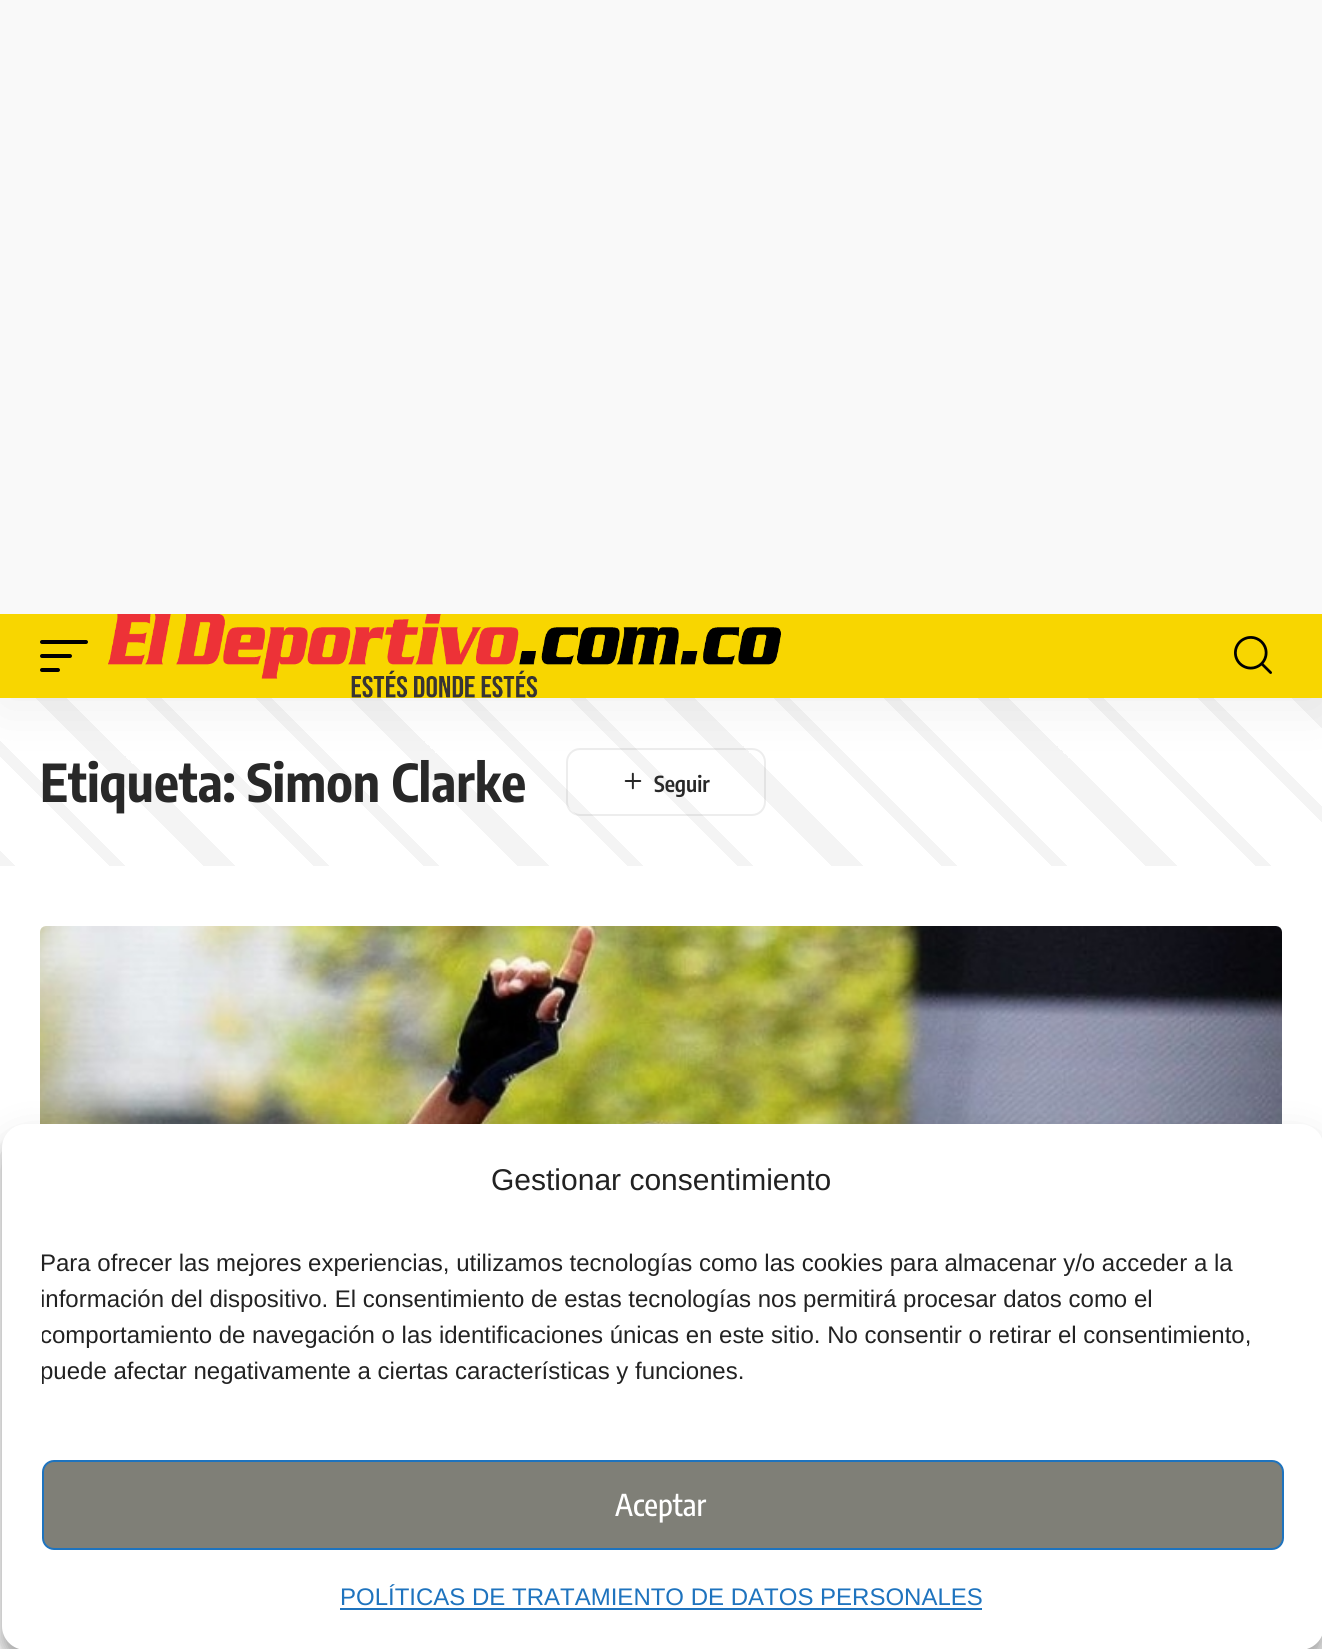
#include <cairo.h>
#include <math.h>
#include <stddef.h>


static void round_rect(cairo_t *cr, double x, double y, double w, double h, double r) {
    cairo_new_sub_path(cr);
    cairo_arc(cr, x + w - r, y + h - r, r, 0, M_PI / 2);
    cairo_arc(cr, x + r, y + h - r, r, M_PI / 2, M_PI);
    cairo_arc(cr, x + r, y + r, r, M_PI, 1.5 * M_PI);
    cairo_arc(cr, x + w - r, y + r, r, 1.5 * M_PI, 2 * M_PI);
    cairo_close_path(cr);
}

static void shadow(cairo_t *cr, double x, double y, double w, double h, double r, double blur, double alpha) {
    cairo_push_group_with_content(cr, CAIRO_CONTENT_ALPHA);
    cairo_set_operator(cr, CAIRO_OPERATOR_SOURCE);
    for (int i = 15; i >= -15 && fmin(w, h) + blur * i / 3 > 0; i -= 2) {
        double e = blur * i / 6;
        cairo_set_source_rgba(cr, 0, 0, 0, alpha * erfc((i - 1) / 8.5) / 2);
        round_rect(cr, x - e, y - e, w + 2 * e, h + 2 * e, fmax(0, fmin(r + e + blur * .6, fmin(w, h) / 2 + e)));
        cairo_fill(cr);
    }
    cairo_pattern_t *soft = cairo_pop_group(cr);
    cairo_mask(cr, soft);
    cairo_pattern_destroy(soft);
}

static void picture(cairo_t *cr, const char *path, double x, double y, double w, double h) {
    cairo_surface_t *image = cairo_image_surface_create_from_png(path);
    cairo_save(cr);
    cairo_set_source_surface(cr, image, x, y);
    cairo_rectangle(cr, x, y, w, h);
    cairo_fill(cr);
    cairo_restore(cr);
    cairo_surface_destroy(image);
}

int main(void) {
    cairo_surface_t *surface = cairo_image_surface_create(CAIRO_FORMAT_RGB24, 1322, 1649);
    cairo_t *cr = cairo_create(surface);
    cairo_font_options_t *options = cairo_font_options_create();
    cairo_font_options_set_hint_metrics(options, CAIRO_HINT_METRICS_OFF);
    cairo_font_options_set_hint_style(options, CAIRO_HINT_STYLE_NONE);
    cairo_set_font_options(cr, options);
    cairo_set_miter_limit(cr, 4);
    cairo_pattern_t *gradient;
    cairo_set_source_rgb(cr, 1, 1, 1);
    cairo_paint(cr);
    cairo_set_source_rgb(cr, 0.973, 0.973, 0.973);
    cairo_rectangle(cr, 0, 0, 1322, 614);
    cairo_fill(cr);
    round_rect(cr, 567, 749, 198, 66, 13);
    cairo_set_source_rgb(cr, 0.929, 0.929, 0.929);
    cairo_stroke(cr);
    picture(cr, "img3.png", 624, 772, 18, 18);
    gradient = cairo_pattern_create_linear(289, 1155, 1073, 370);
    cairo_pattern_add_color_stop_rgba(gradient, 0, 0.157, 0.157, 0.157, 0.05);
    cairo_pattern_add_color_stop_rgba(gradient, 0.01, 0.157, 0.157, 0.157, 0.05);
    cairo_pattern_add_color_stop_rgba(gradient, 0.01, 0.157, 0.157, 0.157, 0);
    cairo_pattern_add_color_stop_rgba(gradient, 0.07, 0.157, 0.157, 0.157, 0);
    cairo_pattern_add_color_stop_rgba(gradient, 0.07, 0.157, 0.157, 0.157, 0.05);
    cairo_pattern_add_color_stop_rgba(gradient, 0.08, 0.157, 0.157, 0.157, 0.05);
    cairo_pattern_add_color_stop_rgba(gradient, 0.08, 0.157, 0.157, 0.157, 0);
    cairo_pattern_add_color_stop_rgba(gradient, 0.13, 0.157, 0.157, 0.157, 0);
    cairo_pattern_add_color_stop_rgba(gradient, 0.13, 0.157, 0.157, 0.157, 0.05);
    cairo_pattern_add_color_stop_rgba(gradient, 0.15, 0.157, 0.157, 0.157, 0.05);
    cairo_pattern_add_color_stop_rgba(gradient, 0.15, 0.157, 0.157, 0.157, 0);
    cairo_pattern_add_color_stop_rgba(gradient, 0.2, 0.157, 0.157, 0.157, 0);
    cairo_pattern_add_color_stop_rgba(gradient, 0.2, 0.157, 0.157, 0.157, 0.05);
    cairo_pattern_add_color_stop_rgba(gradient, 0.21, 0.157, 0.157, 0.157, 0.05);
    cairo_pattern_add_color_stop_rgba(gradient, 0.21, 0.157, 0.157, 0.157, 0);
    cairo_pattern_add_color_stop_rgba(gradient, 0.27, 0.157, 0.157, 0.157, 0);
    cairo_pattern_add_color_stop_rgba(gradient, 0.27, 0.157, 0.157, 0.157, 0.05);
    cairo_pattern_add_color_stop_rgba(gradient, 0.28, 0.157, 0.157, 0.157, 0.05);
    cairo_pattern_add_color_stop_rgba(gradient, 0.28, 0.157, 0.157, 0.157, 0);
    cairo_pattern_add_color_stop_rgba(gradient, 0.33, 0.157, 0.157, 0.157, 0);
    cairo_pattern_add_color_stop_rgba(gradient, 0.33, 0.157, 0.157, 0.157, 0.05);
    cairo_pattern_add_color_stop_rgba(gradient, 0.35, 0.157, 0.157, 0.157, 0.05);
    cairo_pattern_add_color_stop_rgba(gradient, 0.35, 0.157, 0.157, 0.157, 0);
    cairo_pattern_add_color_stop_rgba(gradient, 0.4, 0.157, 0.157, 0.157, 0);
    cairo_pattern_add_color_stop_rgba(gradient, 0.4, 0.157, 0.157, 0.157, 0.05);
    cairo_pattern_add_color_stop_rgba(gradient, 0.41, 0.157, 0.157, 0.157, 0.05);
    cairo_pattern_add_color_stop_rgba(gradient, 0.41, 0.157, 0.157, 0.157, 0);
    cairo_pattern_add_color_stop_rgba(gradient, 0.47, 0.157, 0.157, 0.157, 0);
    cairo_pattern_add_color_stop_rgba(gradient, 0.47, 0.157, 0.157, 0.157, 0.05);
    cairo_pattern_add_color_stop_rgba(gradient, 0.48, 0.157, 0.157, 0.157, 0.05);
    cairo_pattern_add_color_stop_rgba(gradient, 0.48, 0.157, 0.157, 0.157, 0);
    cairo_pattern_add_color_stop_rgba(gradient, 0.53, 0.157, 0.157, 0.157, 0);
    cairo_pattern_add_color_stop_rgba(gradient, 0.53, 0.157, 0.157, 0.157, 0.05);
    cairo_pattern_add_color_stop_rgba(gradient, 0.55, 0.157, 0.157, 0.157, 0.05);
    cairo_pattern_add_color_stop_rgba(gradient, 0.55, 0.157, 0.157, 0.157, 0);
    cairo_pattern_add_color_stop_rgba(gradient, 0.6, 0.157, 0.157, 0.157, 0);
    cairo_pattern_add_color_stop_rgba(gradient, 0.6, 0.157, 0.157, 0.157, 0.05);
    cairo_pattern_add_color_stop_rgba(gradient, 0.61, 0.157, 0.157, 0.157, 0.05);
    cairo_pattern_add_color_stop_rgba(gradient, 0.61, 0.157, 0.157, 0.157, 0);
    cairo_pattern_add_color_stop_rgba(gradient, 0.67, 0.157, 0.157, 0.157, 0);
    cairo_pattern_add_color_stop_rgba(gradient, 0.67, 0.157, 0.157, 0.157, 0.05);
    cairo_pattern_add_color_stop_rgba(gradient, 0.68, 0.157, 0.157, 0.157, 0.05);
    cairo_pattern_add_color_stop_rgba(gradient, 0.68, 0.157, 0.157, 0.157, 0);
    cairo_pattern_add_color_stop_rgba(gradient, 0.73, 0.157, 0.157, 0.157, 0);
    cairo_pattern_add_color_stop_rgba(gradient, 0.73, 0.157, 0.157, 0.157, 0.05);
    cairo_pattern_add_color_stop_rgba(gradient, 0.75, 0.157, 0.157, 0.157, 0.05);
    cairo_pattern_add_color_stop_rgba(gradient, 0.75, 0.157, 0.157, 0.157, 0);
    cairo_pattern_add_color_stop_rgba(gradient, 0.8, 0.157, 0.157, 0.157, 0);
    cairo_pattern_add_color_stop_rgba(gradient, 0.8, 0.157, 0.157, 0.157, 0.05);
    cairo_pattern_add_color_stop_rgba(gradient, 0.81, 0.157, 0.157, 0.157, 0.05);
    cairo_pattern_add_color_stop_rgba(gradient, 0.81, 0.157, 0.157, 0.157, 0);
    cairo_pattern_add_color_stop_rgba(gradient, 0.87, 0.157, 0.157, 0.157, 0);
    cairo_pattern_add_color_stop_rgba(gradient, 0.87, 0.157, 0.157, 0.157, 0.05);
    cairo_pattern_add_color_stop_rgba(gradient, 0.88, 0.157, 0.157, 0.157, 0.05);
    cairo_pattern_add_color_stop_rgba(gradient, 0.88, 0.157, 0.157, 0.157, 0);
    cairo_pattern_add_color_stop_rgba(gradient, 0.93, 0.157, 0.157, 0.157, 0);
    cairo_pattern_add_color_stop_rgba(gradient, 0.93, 0.157, 0.157, 0.157, 0.05);
    cairo_pattern_add_color_stop_rgba(gradient, 0.95, 0.157, 0.157, 0.157, 0.05);
    cairo_pattern_add_color_stop_rgba(gradient, 0.95, 0.157, 0.157, 0.157, 0);
    cairo_pattern_add_color_stop_rgba(gradient, 1, 0, 0, 0, 0);
    cairo_set_source(cr, gradient);
    cairo_pattern_destroy(gradient);
    cairo_rectangle(cr, 0, 698, 1322, 168);
    cairo_fill(cr);
    cairo_save(cr);
    cairo_rectangle(cr, 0, 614, 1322, 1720);
    cairo_clip(cr);
    cairo_set_source_rgb(cr, 0, 0, 0);
    shadow(cr, 0, 622, 1322, 84, 0, 30, 0.07);
    cairo_restore(cr);
    cairo_set_source_rgb(cr, 0.969, 0.839, 0);
    cairo_rectangle(cr, 0, 614, 1322, 84);
    cairo_fill(cr);
    cairo_set_source_rgb(cr, 0, 0, 0);
    round_rect(cr, 40, 640, 48, 4, 2);
    cairo_fill(cr);
    round_rect(cr, 40, 654, 32, 4, 2);
    cairo_fill(cr);
    round_rect(cr, 40, 668, 20, 4, 2);
    cairo_fill(cr);
    picture(cr, "img1.png", 108, 614, 673, 84);
    picture(cr, "img2.png", 1234, 636, 38, 38);
    cairo_select_font_face(cr, "Encode Sans Condensed", CAIRO_FONT_SLANT_NORMAL, CAIRO_FONT_WEIGHT_BOLD);
    cairo_set_font_size(cr, 52);
    cairo_set_source_rgb(cr, 0.157, 0.157, 0.157);
    cairo_move_to(cr, 40, 802);
    cairo_show_text(cr, "Etiqueta: Simon Clarke");
    cairo_select_font_face(cr, "Encode Sans Condensed SemiBold", CAIRO_FONT_SLANT_NORMAL, CAIRO_FONT_WEIGHT_NORMAL);
    cairo_set_font_size(cr, 22);
    cairo_move_to(cr, 654, 792);
    cairo_show_text(cr, "Seguir");
    picture(cr, "img4.png", 40, 926, 1242, 198);
    cairo_set_source_rgb(cr, 0, 0, 0);
    shadow(cr, 2, 1136, 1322, 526, 24, 6, 0.23);
    shadow(cr, 2, 1144, 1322, 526, 24, 20, 0.19);
    cairo_set_source_rgb(cr, 1, 1, 1);
    round_rect(cr, 2, 1124, 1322, 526, 24);
    cairo_fill(cr);
    cairo_select_font_face(cr, "Liberation Sans", CAIRO_FONT_SLANT_NORMAL, CAIRO_FONT_WEIGHT_NORMAL);
    cairo_set_font_size(cr, 30);
    cairo_set_source_rgb(cr, 0.133, 0.133, 0.133);
    cairo_move_to(cr, 491, 1190);
    cairo_show_text(cr, "Gestionar consentimiento");
    cairo_set_font_size(cr, 24);
    cairo_move_to(cr, 40, 1271);
    cairo_show_text(cr, "Para ofrecer las mejores experiencias, utilizamos tecnologías como las cookies para almacenar y/o acceder a la");
    cairo_save(cr);
    cairo_rectangle(cr, 42, 1246, 1242, 154);
    cairo_clip(cr);
    cairo_move_to(cr, 40, 1307);
    cairo_show_text(cr, "información del dispositivo. El consentimiento de estas tecnologías nos permitirá procesar datos como el");
    cairo_move_to(cr, 40, 1343);
    cairo_show_text(cr, "comportamiento de navegación o las identificaciones únicas en este sitio. No consentir o retirar el consentimiento,");
    cairo_move_to(cr, 40, 1379);
    cairo_show_text(cr, "puede afectar negativamente a ciertas características y funciones.");
    cairo_restore(cr);
    cairo_set_source_rgb(cr, 0.498, 0.498, 0.467);
    round_rect(cr, 43, 1461, 1240, 88, 11);
    cairo_fill_preserve(cr);
    cairo_set_source_rgb(cr, 0.118, 0.451, 0.745);
    cairo_stroke(cr);
    cairo_select_font_face(cr, "Encode Sans Condensed Medium", CAIRO_FONT_SLANT_NORMAL, CAIRO_FONT_WEIGHT_NORMAL);
    cairo_set_font_size(cr, 30);
    cairo_set_source_rgb(cr, 1, 1, 1);
    cairo_move_to(cr, 615, 1516);
    cairo_show_text(cr, "Aceptar");
    cairo_select_font_face(cr, "Liberation Sans", CAIRO_FONT_SLANT_NORMAL, CAIRO_FONT_WEIGHT_NORMAL);
    cairo_set_font_size(cr, 24);
    cairo_set_source_rgb(cr, 0.118, 0.451, 0.745);
    cairo_move_to(cr, 340, 1605);
    cairo_show_text(cr, "POLÍTICAS DE TRATAMIENTO DE DATOS PERSONALES");
    cairo_rectangle(cr, 340, 1608, 642, 2);
    cairo_fill(cr);
    cairo_surface_write_to_png(surface, "page.png");
    cairo_font_options_destroy(options);
    cairo_destroy(cr);
    cairo_surface_destroy(surface);
    return 0;
}
